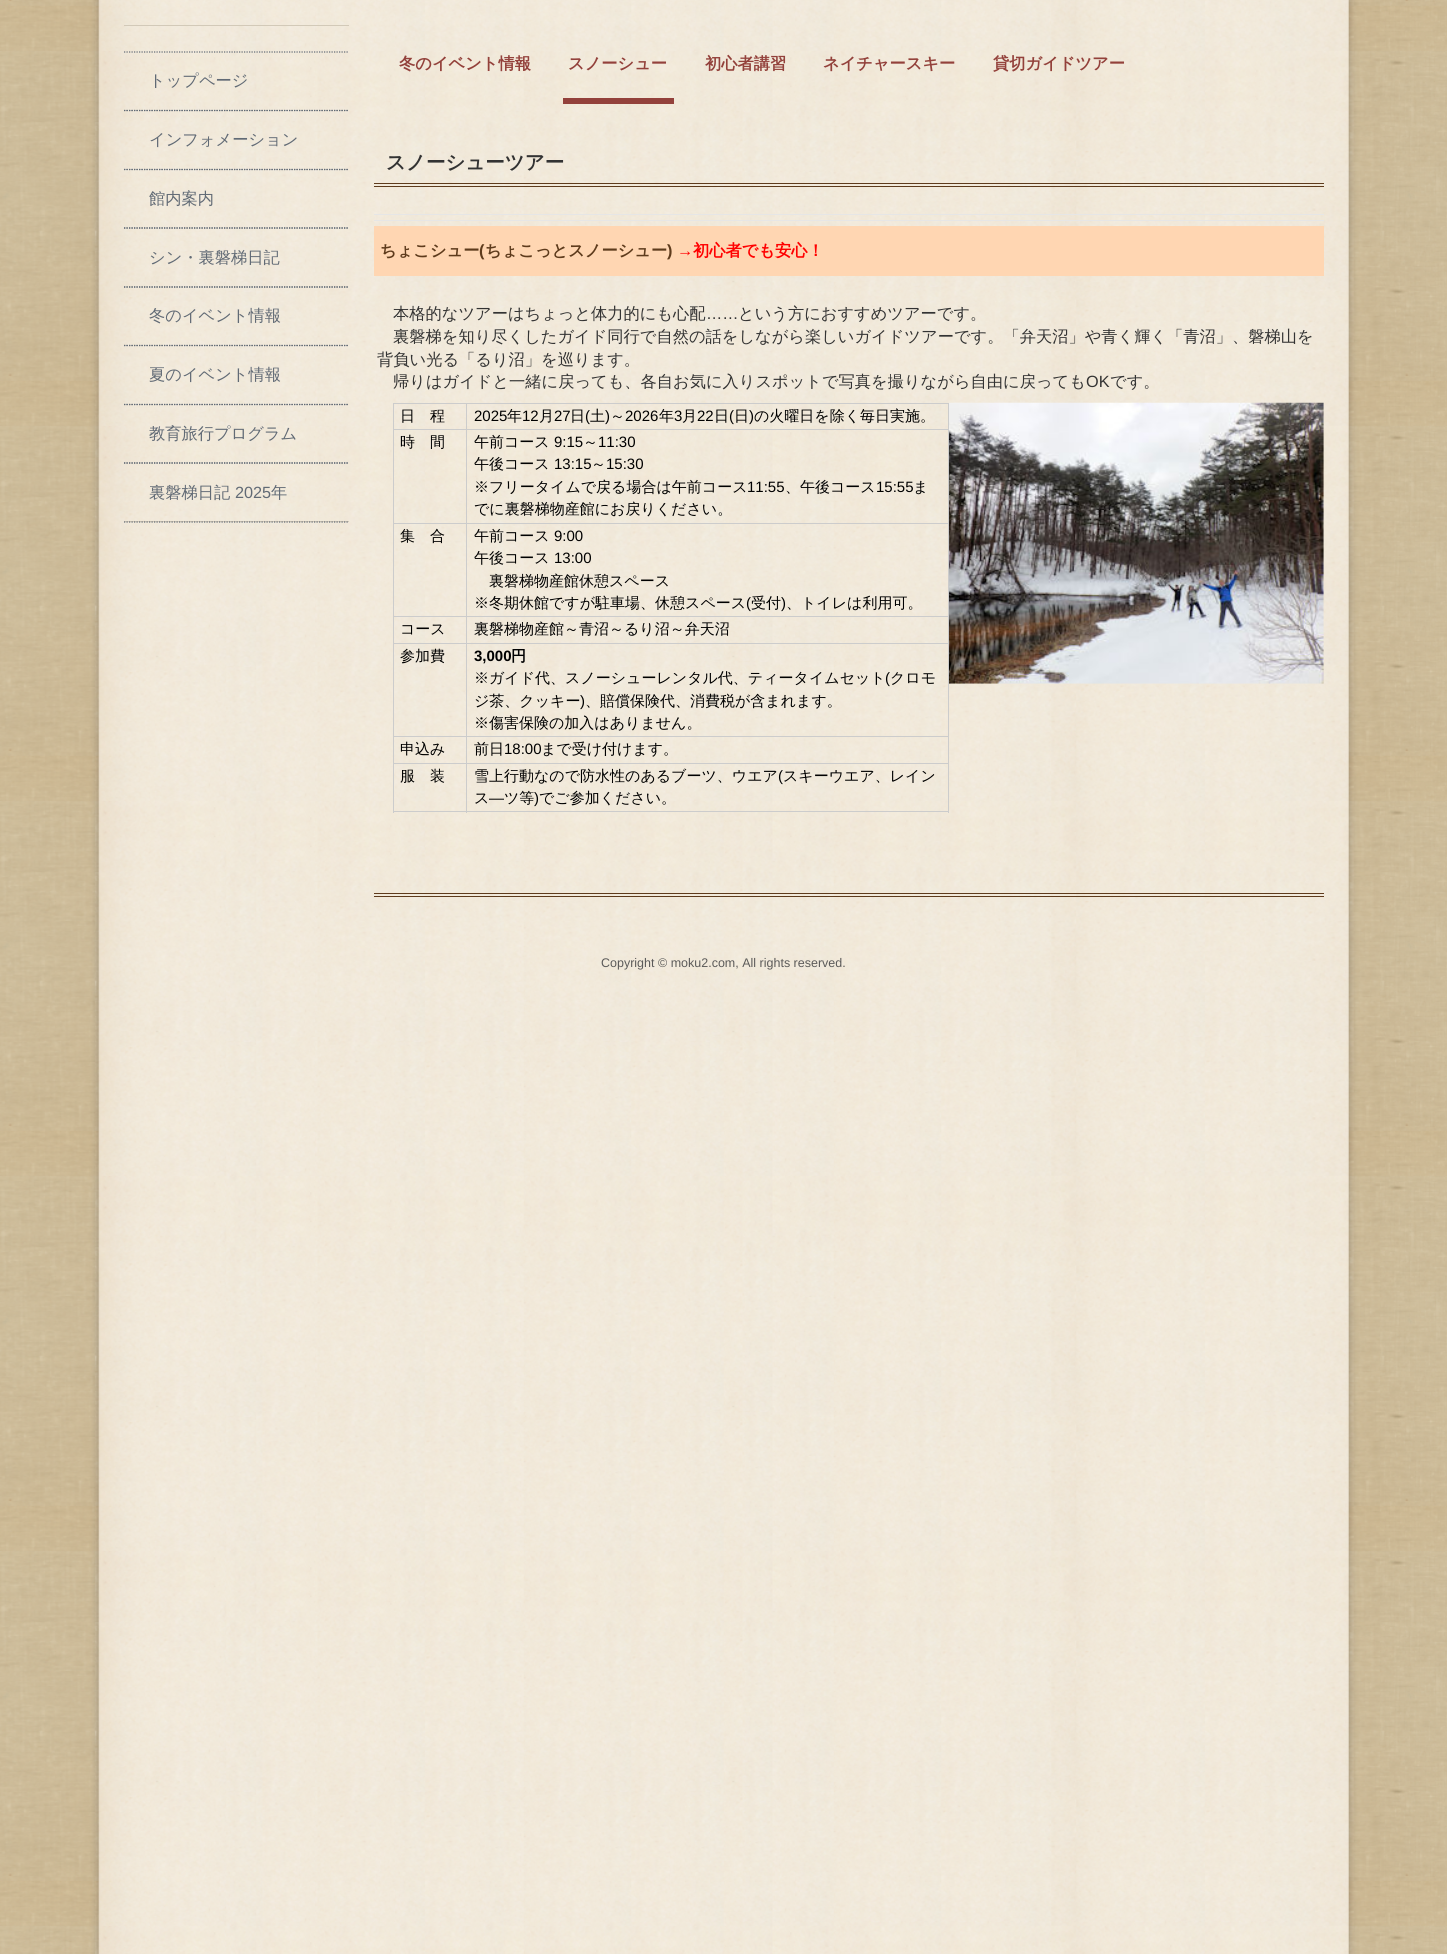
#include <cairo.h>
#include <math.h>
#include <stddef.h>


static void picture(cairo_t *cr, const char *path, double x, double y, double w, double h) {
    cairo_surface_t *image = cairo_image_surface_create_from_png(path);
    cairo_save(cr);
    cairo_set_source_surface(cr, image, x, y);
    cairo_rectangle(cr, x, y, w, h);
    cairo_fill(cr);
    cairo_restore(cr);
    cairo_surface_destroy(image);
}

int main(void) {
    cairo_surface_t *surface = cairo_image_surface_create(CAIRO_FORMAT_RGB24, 1447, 1954);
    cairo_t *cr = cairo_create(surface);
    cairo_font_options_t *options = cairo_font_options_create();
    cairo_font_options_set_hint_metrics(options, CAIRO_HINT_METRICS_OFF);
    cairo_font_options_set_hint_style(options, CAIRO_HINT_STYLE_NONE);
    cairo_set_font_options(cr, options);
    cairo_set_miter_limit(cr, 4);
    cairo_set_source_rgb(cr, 1, 1, 1);
    cairo_paint(cr);
    picture(cr, "img1.png", 0, 0, 1447, 1954);
    cairo_set_source_rgb(cr, 0.824, 0.788, 0.722);
    cairo_rectangle(cr, 124, 25, 225, 1);
    cairo_fill(cr);
    cairo_rectangle(cr, 124, 521, 225, 1);
    cairo_fill(cr);
    cairo_new_path(cr);
    cairo_move_to(cr, 124, 52);
    cairo_line_to(cr, 349, 52);
    cairo_set_source_rgb(cr, 0.38, 0.416, 0.459);
    cairo_set_line_width(cr, 1.2);
    cairo_set_dash(cr, (double[]){1.25, 1.25}, 2, 0);
    cairo_stroke(cr);
    cairo_new_path(cr);
    cairo_move_to(cr, 124, 110.5);
    cairo_line_to(cr, 349, 110.5);
    cairo_stroke(cr);
    cairo_select_font_face(cr, "WenQuanYi Zen Hei Medium", CAIRO_FONT_SLANT_NORMAL, CAIRO_FONT_WEIGHT_NORMAL);
    cairo_set_font_size(cr, 16.25);
    cairo_move_to(cr, 149, 86);
    cairo_show_text(cr, "トップページ");
    cairo_new_path(cr);
    cairo_move_to(cr, 124, 110.5);
    cairo_line_to(cr, 349, 110.5);
    cairo_stroke(cr);
    cairo_new_path(cr);
    cairo_move_to(cr, 124, 169.5);
    cairo_line_to(cr, 349, 169.5);
    cairo_stroke(cr);
    cairo_move_to(cr, 149, 145);
    cairo_show_text(cr, "インフォメーション");
    cairo_new_path(cr);
    cairo_move_to(cr, 124, 169.5);
    cairo_line_to(cr, 349, 169.5);
    cairo_stroke(cr);
    cairo_new_path(cr);
    cairo_move_to(cr, 124, 228);
    cairo_line_to(cr, 349, 228);
    cairo_stroke(cr);
    cairo_move_to(cr, 149, 204);
    cairo_show_text(cr, "館内案内");
    cairo_new_path(cr);
    cairo_move_to(cr, 124, 228);
    cairo_line_to(cr, 349, 228);
    cairo_stroke(cr);
    cairo_new_path(cr);
    cairo_move_to(cr, 124, 287);
    cairo_line_to(cr, 349, 287);
    cairo_stroke(cr);
    cairo_move_to(cr, 149, 263);
    cairo_show_text(cr, "シン・裏磐梯日記");
    cairo_new_path(cr);
    cairo_move_to(cr, 124, 287);
    cairo_line_to(cr, 349, 287);
    cairo_stroke(cr);
    cairo_new_path(cr);
    cairo_move_to(cr, 124, 345.5);
    cairo_line_to(cr, 349, 345.5);
    cairo_stroke(cr);
    cairo_move_to(cr, 149, 321);
    cairo_show_text(cr, "冬のイベント情報");
    cairo_new_path(cr);
    cairo_move_to(cr, 124, 345.5);
    cairo_line_to(cr, 349, 345.5);
    cairo_stroke(cr);
    cairo_new_path(cr);
    cairo_move_to(cr, 124, 404.5);
    cairo_line_to(cr, 349, 404.5);
    cairo_stroke(cr);
    cairo_move_to(cr, 149, 380);
    cairo_show_text(cr, "夏のイベント情報");
    cairo_new_path(cr);
    cairo_move_to(cr, 124, 404.5);
    cairo_line_to(cr, 349, 404.5);
    cairo_stroke(cr);
    cairo_new_path(cr);
    cairo_move_to(cr, 124, 463);
    cairo_line_to(cr, 349, 463);
    cairo_stroke(cr);
    cairo_move_to(cr, 149, 439);
    cairo_show_text(cr, "教育旅行プログラム");
    cairo_new_path(cr);
    cairo_move_to(cr, 124, 463);
    cairo_line_to(cr, 349, 463);
    cairo_stroke(cr);
    cairo_new_path(cr);
    cairo_move_to(cr, 124, 522);
    cairo_line_to(cr, 349, 522);
    cairo_stroke(cr);
    cairo_move_to(cr, 149, 498);
    cairo_show_text(cr, "裏磐梯日記");
    cairo_select_font_face(cr, "Liberation Sans", CAIRO_FONT_SLANT_NORMAL, CAIRO_FONT_WEIGHT_NORMAL);
    cairo_move_to(cr, 235, 498);
    cairo_show_text(cr, "2025");
    cairo_select_font_face(cr, "WenQuanYi Zen Hei Medium", CAIRO_FONT_SLANT_NORMAL, CAIRO_FONT_WEIGHT_NORMAL);
    cairo_move_to(cr, 271, 498);
    cairo_show_text(cr, "年");
    cairo_select_font_face(cr, "WenQuanYi Zen Hei", CAIRO_FONT_SLANT_NORMAL, CAIRO_FONT_WEIGHT_BOLD);
    cairo_set_source_rgb(cr, 0.576, 0.255, 0.231);
    cairo_move_to(cr, 399, 69);
    cairo_show_text(cr, "冬のイベント情報");
    cairo_rectangle(cr, 563, 98, 111, 6);
    cairo_fill(cr);
    cairo_move_to(cr, 568, 69);
    cairo_show_text(cr, "スノーシュー");
    cairo_move_to(cr, 705, 69);
    cairo_show_text(cr, "初心者講習");
    cairo_move_to(cr, 823, 69);
    cairo_show_text(cr, "ネイチャースキー");
    cairo_move_to(cr, 993, 69);
    cairo_show_text(cr, "貸切ガイドツアー");
    cairo_set_source_rgb(cr, 0.369, 0.231, 0.11);
    cairo_rectangle(cr, 374, 183, 950, 1);
    cairo_fill(cr);
    cairo_rectangle(cr, 374, 186, 950, 1);
    cairo_fill(cr);
    cairo_set_font_size(cr, 19.5);
    cairo_set_source_rgb(cr, 0.2, 0.2, 0.2);
    cairo_move_to(cr, 386, 169);
    cairo_show_text(cr, "スノーシューツアー");
    cairo_set_source_rgb(cr, 0.902, 0.902, 0.902);
    cairo_rectangle(cr, 374, 214, 950, 1);
    cairo_fill(cr);
    cairo_rectangle(cr, 374, 220, 950, 1);
    cairo_fill(cr);
    cairo_set_source_rgb(cr, 1, 0.839, 0.698);
    cairo_rectangle(cr, 374, 226, 950, 50);
    cairo_fill(cr);
    cairo_set_font_size(cr, 16.25);
    cairo_set_source_rgb(cr, 0.369, 0.231, 0.11);
    cairo_move_to(cr, 380, 256);
    cairo_show_text(cr, "ちょこシュー");
    cairo_select_font_face(cr, "Liberation Sans", CAIRO_FONT_SLANT_NORMAL, CAIRO_FONT_WEIGHT_BOLD);
    cairo_move_to(cr, 479, 256);
    cairo_show_text(cr, "(");
    cairo_select_font_face(cr, "WenQuanYi Zen Hei", CAIRO_FONT_SLANT_NORMAL, CAIRO_FONT_WEIGHT_BOLD);
    cairo_move_to(cr, 485, 256);
    cairo_show_text(cr, "ちょこっとスノーシュー");
    cairo_select_font_face(cr, "Liberation Sans", CAIRO_FONT_SLANT_NORMAL, CAIRO_FONT_WEIGHT_BOLD);
    cairo_move_to(cr, 667, 256);
    cairo_show_text(cr, ")");
    cairo_set_source_rgb(cr, 1, 0, 0);
    cairo_move_to(cr, 677, 256);
    cairo_show_text(cr, "→");
    cairo_select_font_face(cr, "WenQuanYi Zen Hei", CAIRO_FONT_SLANT_NORMAL, CAIRO_FONT_WEIGHT_BOLD);
    cairo_move_to(cr, 693, 256);
    cairo_show_text(cr, "初心者でも安心！");
    cairo_select_font_face(cr, "WenQuanYi Zen Hei Medium", CAIRO_FONT_SLANT_NORMAL, CAIRO_FONT_WEIGHT_NORMAL);
    cairo_set_source_rgb(cr, 0.2, 0.2, 0.2);
    cairo_move_to(cr, 393, 319);
    cairo_show_text(cr, "本格的なツアーはちょっと体力的にも心配");
    cairo_select_font_face(cr, "Liberation Sans", CAIRO_FONT_SLANT_NORMAL, CAIRO_FONT_WEIGHT_NORMAL);
    cairo_move_to(cr, 706, 319);
    cairo_show_text(cr, "……");
    cairo_select_font_face(cr, "WenQuanYi Zen Hei Medium", CAIRO_FONT_SLANT_NORMAL, CAIRO_FONT_WEIGHT_NORMAL);
    cairo_move_to(cr, 738, 319);
    cairo_show_text(cr, "という方におすすめツアーです。");
    cairo_move_to(cr, 393, 342);
    cairo_show_text(cr, "裏磐梯を知り尽くしたガイド同行で自然の話をしながら楽しいガイドツアーです。「弁天沼」や青く輝く「青沼」、磐梯山を");
    cairo_move_to(cr, 377, 365);
    cairo_show_text(cr, "背負い光る「るり沼」を巡ります。");
    cairo_move_to(cr, 393, 387);
    cairo_show_text(cr, "帰りはガイドと一緒に戻っても、各自お気に入りスポットで写真を撮りながら自由に戻っても");
    cairo_select_font_face(cr, "Liberation Sans", CAIRO_FONT_SLANT_NORMAL, CAIRO_FONT_WEIGHT_NORMAL);
    cairo_move_to(cr, 1086, 387);
    cairo_show_text(cr, "OK");
    cairo_select_font_face(cr, "WenQuanYi Zen Hei Medium", CAIRO_FONT_SLANT_NORMAL, CAIRO_FONT_WEIGHT_NORMAL);
    cairo_move_to(cr, 1110, 387);
    cairo_show_text(cr, "です。");
    cairo_set_source_rgb(cr, 0.8, 0.8, 0.8);
    cairo_rectangle(cr, 466, 403, 483, 1);
    cairo_fill(cr);
    cairo_rectangle(cr, 466, 429, 483, 1);
    cairo_fill(cr);
    cairo_rectangle(cr, 466, 523, 483, 1);
    cairo_fill(cr);
    cairo_rectangle(cr, 466, 616, 483, 1);
    cairo_fill(cr);
    cairo_rectangle(cr, 466, 643, 483, 1);
    cairo_fill(cr);
    cairo_rectangle(cr, 466, 736, 483, 1);
    cairo_fill(cr);
    cairo_rectangle(cr, 466, 763, 483, 1);
    cairo_fill(cr);
    cairo_rectangle(cr, 948, 763, 1, 50);
    cairo_fill(cr);
    cairo_rectangle(cr, 466, 811, 483, 1);
    cairo_fill(cr);
    cairo_rectangle(cr, 466, 763, 1, 50);
    cairo_fill(cr);
    cairo_rectangle(cr, 393, 763, 75, 1);
    cairo_fill(cr);
    cairo_rectangle(cr, 466, 736, 1, 28);
    cairo_fill(cr);
    cairo_rectangle(cr, 393, 736, 75, 1);
    cairo_fill(cr);
    cairo_rectangle(cr, 466, 643, 1, 95);
    cairo_fill(cr);
    cairo_rectangle(cr, 393, 643, 75, 1);
    cairo_fill(cr);
    cairo_rectangle(cr, 466, 616, 1, 28);
    cairo_fill(cr);
    cairo_rectangle(cr, 393, 616, 75, 1);
    cairo_fill(cr);
    cairo_rectangle(cr, 466, 523, 1, 95);
    cairo_fill(cr);
    cairo_rectangle(cr, 393, 523, 75, 1);
    cairo_fill(cr);
    cairo_rectangle(cr, 466, 429, 1, 95);
    cairo_fill(cr);
    cairo_rectangle(cr, 393, 429, 75, 1);
    cairo_fill(cr);
    cairo_rectangle(cr, 466, 403, 1, 27);
    cairo_fill(cr);
    cairo_rectangle(cr, 393, 403, 75, 1);
    cairo_fill(cr);
    cairo_rectangle(cr, 393, 811, 75, 1);
    cairo_fill(cr);
    cairo_rectangle(cr, 393, 763, 1, 50);
    cairo_fill(cr);
    cairo_rectangle(cr, 393, 736, 1, 28);
    cairo_fill(cr);
    cairo_rectangle(cr, 393, 643, 1, 95);
    cairo_fill(cr);
    cairo_rectangle(cr, 393, 616, 1, 28);
    cairo_fill(cr);
    cairo_rectangle(cr, 393, 523, 1, 95);
    cairo_fill(cr);
    cairo_rectangle(cr, 393, 429, 1, 95);
    cairo_fill(cr);
    cairo_rectangle(cr, 393, 403, 1, 27);
    cairo_fill(cr);
    cairo_set_font_size(cr, 15);
    cairo_set_source_rgb(cr, 0, 0, 0);
    cairo_move_to(cr, 400, 421);
    cairo_show_text(cr, "日　程");
    cairo_set_source_rgb(cr, 0.8, 0.8, 0.8);
    cairo_rectangle(cr, 948, 736, 1, 28);
    cairo_fill(cr);
    cairo_rectangle(cr, 948, 643, 1, 95);
    cairo_fill(cr);
    cairo_rectangle(cr, 948, 616, 1, 28);
    cairo_fill(cr);
    cairo_rectangle(cr, 948, 523, 1, 95);
    cairo_fill(cr);
    cairo_rectangle(cr, 948, 429, 1, 95);
    cairo_fill(cr);
    cairo_rectangle(cr, 948, 403, 1, 27);
    cairo_fill(cr);
    cairo_select_font_face(cr, "Liberation Sans", CAIRO_FONT_SLANT_NORMAL, CAIRO_FONT_WEIGHT_NORMAL);
    cairo_set_source_rgb(cr, 0, 0, 0);
    cairo_move_to(cr, 474, 421);
    cairo_show_text(cr, "2025");
    cairo_select_font_face(cr, "WenQuanYi Zen Hei Medium", CAIRO_FONT_SLANT_NORMAL, CAIRO_FONT_WEIGHT_NORMAL);
    cairo_move_to(cr, 507, 421);
    cairo_show_text(cr, "年");
    cairo_select_font_face(cr, "Liberation Sans", CAIRO_FONT_SLANT_NORMAL, CAIRO_FONT_WEIGHT_NORMAL);
    cairo_move_to(cr, 522, 421);
    cairo_show_text(cr, "12");
    cairo_select_font_face(cr, "WenQuanYi Zen Hei Medium", CAIRO_FONT_SLANT_NORMAL, CAIRO_FONT_WEIGHT_NORMAL);
    cairo_move_to(cr, 539, 421);
    cairo_show_text(cr, "月");
    cairo_select_font_face(cr, "Liberation Sans", CAIRO_FONT_SLANT_NORMAL, CAIRO_FONT_WEIGHT_NORMAL);
    cairo_move_to(cr, 554, 421);
    cairo_show_text(cr, "27");
    cairo_select_font_face(cr, "WenQuanYi Zen Hei Medium", CAIRO_FONT_SLANT_NORMAL, CAIRO_FONT_WEIGHT_NORMAL);
    cairo_move_to(cr, 570, 421);
    cairo_show_text(cr, "日");
    cairo_select_font_face(cr, "Liberation Sans", CAIRO_FONT_SLANT_NORMAL, CAIRO_FONT_WEIGHT_NORMAL);
    cairo_move_to(cr, 585, 421);
    cairo_show_text(cr, "(");
    cairo_select_font_face(cr, "WenQuanYi Zen Hei Medium", CAIRO_FONT_SLANT_NORMAL, CAIRO_FONT_WEIGHT_NORMAL);
    cairo_move_to(cr, 590, 421);
    cairo_show_text(cr, "土");
    cairo_select_font_face(cr, "Liberation Sans", CAIRO_FONT_SLANT_NORMAL, CAIRO_FONT_WEIGHT_NORMAL);
    cairo_move_to(cr, 605, 421);
    cairo_show_text(cr, ")");
    cairo_select_font_face(cr, "WenQuanYi Zen Hei Medium", CAIRO_FONT_SLANT_NORMAL, CAIRO_FONT_WEIGHT_NORMAL);
    cairo_move_to(cr, 610, 421);
    cairo_show_text(cr, "～");
    cairo_select_font_face(cr, "Liberation Sans", CAIRO_FONT_SLANT_NORMAL, CAIRO_FONT_WEIGHT_NORMAL);
    cairo_move_to(cr, 625, 421);
    cairo_show_text(cr, "2026");
    cairo_select_font_face(cr, "WenQuanYi Zen Hei Medium", CAIRO_FONT_SLANT_NORMAL, CAIRO_FONT_WEIGHT_NORMAL);
    cairo_move_to(cr, 659, 421);
    cairo_show_text(cr, "年");
    cairo_select_font_face(cr, "Liberation Sans", CAIRO_FONT_SLANT_NORMAL, CAIRO_FONT_WEIGHT_NORMAL);
    cairo_move_to(cr, 674, 421);
    cairo_show_text(cr, "3");
    cairo_select_font_face(cr, "WenQuanYi Zen Hei Medium", CAIRO_FONT_SLANT_NORMAL, CAIRO_FONT_WEIGHT_NORMAL);
    cairo_move_to(cr, 682, 421);
    cairo_show_text(cr, "月");
    cairo_select_font_face(cr, "Liberation Sans", CAIRO_FONT_SLANT_NORMAL, CAIRO_FONT_WEIGHT_NORMAL);
    cairo_move_to(cr, 697, 421);
    cairo_show_text(cr, "22");
    cairo_select_font_face(cr, "WenQuanYi Zen Hei Medium", CAIRO_FONT_SLANT_NORMAL, CAIRO_FONT_WEIGHT_NORMAL);
    cairo_move_to(cr, 714, 421);
    cairo_show_text(cr, "日");
    cairo_select_font_face(cr, "Liberation Sans", CAIRO_FONT_SLANT_NORMAL, CAIRO_FONT_WEIGHT_NORMAL);
    cairo_move_to(cr, 729, 421);
    cairo_show_text(cr, "(");
    cairo_select_font_face(cr, "WenQuanYi Zen Hei Medium", CAIRO_FONT_SLANT_NORMAL, CAIRO_FONT_WEIGHT_NORMAL);
    cairo_move_to(cr, 734, 421);
    cairo_show_text(cr, "日");
    cairo_select_font_face(cr, "Liberation Sans", CAIRO_FONT_SLANT_NORMAL, CAIRO_FONT_WEIGHT_NORMAL);
    cairo_move_to(cr, 749, 421);
    cairo_show_text(cr, ")");
    cairo_select_font_face(cr, "WenQuanYi Zen Hei Medium", CAIRO_FONT_SLANT_NORMAL, CAIRO_FONT_WEIGHT_NORMAL);
    cairo_move_to(cr, 754, 421);
    cairo_show_text(cr, "の火曜日を除く毎日実施。");
    cairo_move_to(cr, 400, 447);
    cairo_show_text(cr, "時　間");
    cairo_move_to(cr, 474, 447);
    cairo_show_text(cr, "午前コース");
    cairo_select_font_face(cr, "Liberation Sans", CAIRO_FONT_SLANT_NORMAL, CAIRO_FONT_WEIGHT_NORMAL);
    cairo_move_to(cr, 554, 447);
    cairo_show_text(cr, "9:15");
    cairo_select_font_face(cr, "WenQuanYi Zen Hei Medium", CAIRO_FONT_SLANT_NORMAL, CAIRO_FONT_WEIGHT_NORMAL);
    cairo_move_to(cr, 583, 447);
    cairo_show_text(cr, "～");
    cairo_select_font_face(cr, "Liberation Sans", CAIRO_FONT_SLANT_NORMAL, CAIRO_FONT_WEIGHT_NORMAL);
    cairo_move_to(cr, 598, 447);
    cairo_show_text(cr, "11:30");
    cairo_select_font_face(cr, "WenQuanYi Zen Hei Medium", CAIRO_FONT_SLANT_NORMAL, CAIRO_FONT_WEIGHT_NORMAL);
    cairo_move_to(cr, 474, 469);
    cairo_show_text(cr, "午後コース");
    cairo_select_font_face(cr, "Liberation Sans", CAIRO_FONT_SLANT_NORMAL, CAIRO_FONT_WEIGHT_NORMAL);
    cairo_move_to(cr, 554, 469);
    cairo_show_text(cr, "13:15");
    cairo_select_font_face(cr, "WenQuanYi Zen Hei Medium", CAIRO_FONT_SLANT_NORMAL, CAIRO_FONT_WEIGHT_NORMAL);
    cairo_move_to(cr, 591, 469);
    cairo_show_text(cr, "～");
    cairo_select_font_face(cr, "Liberation Sans", CAIRO_FONT_SLANT_NORMAL, CAIRO_FONT_WEIGHT_NORMAL);
    cairo_move_to(cr, 606, 469);
    cairo_show_text(cr, "15:30");
    cairo_select_font_face(cr, "WenQuanYi Zen Hei Medium", CAIRO_FONT_SLANT_NORMAL, CAIRO_FONT_WEIGHT_NORMAL);
    cairo_move_to(cr, 474, 492);
    cairo_show_text(cr, "※フリータイムで戻る場合は午前コース");
    cairo_select_font_face(cr, "Liberation Sans", CAIRO_FONT_SLANT_NORMAL, CAIRO_FONT_WEIGHT_NORMAL);
    cairo_move_to(cr, 747, 492);
    cairo_show_text(cr, "11:55");
    cairo_select_font_face(cr, "WenQuanYi Zen Hei Medium", CAIRO_FONT_SLANT_NORMAL, CAIRO_FONT_WEIGHT_NORMAL);
    cairo_move_to(cr, 785, 492);
    cairo_show_text(cr, "、午後コース");
    cairo_select_font_face(cr, "Liberation Sans", CAIRO_FONT_SLANT_NORMAL, CAIRO_FONT_WEIGHT_NORMAL);
    cairo_move_to(cr, 876, 492);
    cairo_show_text(cr, "15:55");
    cairo_select_font_face(cr, "WenQuanYi Zen Hei Medium", CAIRO_FONT_SLANT_NORMAL, CAIRO_FONT_WEIGHT_NORMAL);
    cairo_move_to(cr, 913, 492);
    cairo_show_text(cr, "ま");
    cairo_move_to(cr, 474, 514);
    cairo_show_text(cr, "でに裏磐梯物産館にお戻りください。");
    cairo_move_to(cr, 400, 541);
    cairo_show_text(cr, "集　合");
    cairo_move_to(cr, 474, 541);
    cairo_show_text(cr, "午前コース");
    cairo_select_font_face(cr, "Liberation Sans", CAIRO_FONT_SLANT_NORMAL, CAIRO_FONT_WEIGHT_NORMAL);
    cairo_move_to(cr, 554, 541);
    cairo_show_text(cr, "9:00");
    cairo_select_font_face(cr, "WenQuanYi Zen Hei Medium", CAIRO_FONT_SLANT_NORMAL, CAIRO_FONT_WEIGHT_NORMAL);
    cairo_move_to(cr, 474, 563);
    cairo_show_text(cr, "午後コース");
    cairo_select_font_face(cr, "Liberation Sans", CAIRO_FONT_SLANT_NORMAL, CAIRO_FONT_WEIGHT_NORMAL);
    cairo_move_to(cr, 554, 563);
    cairo_show_text(cr, "13:00");
    cairo_select_font_face(cr, "WenQuanYi Zen Hei Medium", CAIRO_FONT_SLANT_NORMAL, CAIRO_FONT_WEIGHT_NORMAL);
    cairo_move_to(cr, 489, 586);
    cairo_show_text(cr, "裏磐梯物産館休憩スペース");
    cairo_move_to(cr, 474, 608);
    cairo_show_text(cr, "※冬期休館ですが駐車場、休憩スペース");
    cairo_select_font_face(cr, "Liberation Sans", CAIRO_FONT_SLANT_NORMAL, CAIRO_FONT_WEIGHT_NORMAL);
    cairo_move_to(cr, 746, 608);
    cairo_show_text(cr, "(");
    cairo_select_font_face(cr, "WenQuanYi Zen Hei Medium", CAIRO_FONT_SLANT_NORMAL, CAIRO_FONT_WEIGHT_NORMAL);
    cairo_move_to(cr, 751, 608);
    cairo_show_text(cr, "受付");
    cairo_select_font_face(cr, "Liberation Sans", CAIRO_FONT_SLANT_NORMAL, CAIRO_FONT_WEIGHT_NORMAL);
    cairo_move_to(cr, 781, 608);
    cairo_show_text(cr, ")");
    cairo_select_font_face(cr, "WenQuanYi Zen Hei Medium", CAIRO_FONT_SLANT_NORMAL, CAIRO_FONT_WEIGHT_NORMAL);
    cairo_move_to(cr, 786, 608);
    cairo_show_text(cr, "、トイレは利用可。");
    cairo_move_to(cr, 400, 634);
    cairo_show_text(cr, "コース");
    cairo_move_to(cr, 474, 634);
    cairo_show_text(cr, "裏磐梯物産館～青沼～るり沼～弁天沼");
    cairo_move_to(cr, 400, 661);
    cairo_show_text(cr, "参加費");
    cairo_select_font_face(cr, "Liberation Sans", CAIRO_FONT_SLANT_NORMAL, CAIRO_FONT_WEIGHT_BOLD);
    cairo_move_to(cr, 474, 661);
    cairo_show_text(cr, "3,000");
    cairo_select_font_face(cr, "WenQuanYi Zen Hei", CAIRO_FONT_SLANT_NORMAL, CAIRO_FONT_WEIGHT_BOLD);
    cairo_move_to(cr, 511, 661);
    cairo_show_text(cr, "円");
    cairo_select_font_face(cr, "WenQuanYi Zen Hei Medium", CAIRO_FONT_SLANT_NORMAL, CAIRO_FONT_WEIGHT_NORMAL);
    cairo_move_to(cr, 474, 683);
    cairo_show_text(cr, "※ガイド代、スノーシューレンタル代、ティータイムセット");
    cairo_select_font_face(cr, "Liberation Sans", CAIRO_FONT_SLANT_NORMAL, CAIRO_FONT_WEIGHT_NORMAL);
    cairo_move_to(cr, 885, 683);
    cairo_show_text(cr, "(");
    cairo_select_font_face(cr, "WenQuanYi Zen Hei Medium", CAIRO_FONT_SLANT_NORMAL, CAIRO_FONT_WEIGHT_NORMAL);
    cairo_move_to(cr, 890, 683);
    cairo_show_text(cr, "クロモ");
    cairo_move_to(cr, 474, 706);
    cairo_show_text(cr, "ジ茶、クッキー");
    cairo_select_font_face(cr, "Liberation Sans", CAIRO_FONT_SLANT_NORMAL, CAIRO_FONT_WEIGHT_NORMAL);
    cairo_move_to(cr, 580, 706);
    cairo_show_text(cr, ")");
    cairo_select_font_face(cr, "WenQuanYi Zen Hei Medium", CAIRO_FONT_SLANT_NORMAL, CAIRO_FONT_WEIGHT_NORMAL);
    cairo_move_to(cr, 585, 706);
    cairo_show_text(cr, "、賠償保険代、消費税が含まれます。");
    cairo_move_to(cr, 474, 728);
    cairo_show_text(cr, "※傷害保険の加入はありません。");
    cairo_move_to(cr, 400, 754);
    cairo_show_text(cr, "申込み");
    cairo_move_to(cr, 474, 754);
    cairo_show_text(cr, "前日");
    cairo_select_font_face(cr, "Liberation Sans", CAIRO_FONT_SLANT_NORMAL, CAIRO_FONT_WEIGHT_NORMAL);
    cairo_move_to(cr, 504, 754);
    cairo_show_text(cr, "18:00");
    cairo_select_font_face(cr, "WenQuanYi Zen Hei Medium", CAIRO_FONT_SLANT_NORMAL, CAIRO_FONT_WEIGHT_NORMAL);
    cairo_move_to(cr, 541, 754);
    cairo_show_text(cr, "まで受け付けます。");
    cairo_move_to(cr, 400, 781);
    cairo_show_text(cr, "服　装");
    cairo_move_to(cr, 474, 781);
    cairo_show_text(cr, "雪上行動なので防水性のあるブーツ、ウエア");
    cairo_select_font_face(cr, "Liberation Sans", CAIRO_FONT_SLANT_NORMAL, CAIRO_FONT_WEIGHT_NORMAL);
    cairo_move_to(cr, 778, 781);
    cairo_show_text(cr, "(");
    cairo_select_font_face(cr, "WenQuanYi Zen Hei Medium", CAIRO_FONT_SLANT_NORMAL, CAIRO_FONT_WEIGHT_NORMAL);
    cairo_move_to(cr, 783, 781);
    cairo_show_text(cr, "スキーウエア、レイン");
    cairo_move_to(cr, 474, 803);
    cairo_show_text(cr, "ス");
    cairo_select_font_face(cr, "Liberation Sans", CAIRO_FONT_SLANT_NORMAL, CAIRO_FONT_WEIGHT_NORMAL);
    cairo_move_to(cr, 489, 803);
    cairo_show_text(cr, "―");
    cairo_select_font_face(cr, "WenQuanYi Zen Hei Medium", CAIRO_FONT_SLANT_NORMAL, CAIRO_FONT_WEIGHT_NORMAL);
    cairo_move_to(cr, 504, 803);
    cairo_show_text(cr, "ツ等");
    cairo_select_font_face(cr, "Liberation Sans", CAIRO_FONT_SLANT_NORMAL, CAIRO_FONT_WEIGHT_NORMAL);
    cairo_move_to(cr, 534, 803);
    cairo_show_text(cr, ")");
    cairo_select_font_face(cr, "WenQuanYi Zen Hei Medium", CAIRO_FONT_SLANT_NORMAL, CAIRO_FONT_WEIGHT_NORMAL);
    cairo_move_to(cr, 539, 803);
    cairo_show_text(cr, "でご参加ください。");
    picture(cr, "img2.png", 949, 402, 375, 282);
    cairo_set_source_rgb(cr, 0.369, 0.231, 0.11);
    cairo_rectangle(cr, 374, 893, 950, 1);
    cairo_fill(cr);
    cairo_rectangle(cr, 374, 896, 950, 1);
    cairo_fill(cr);
    cairo_select_font_face(cr, "Liberation Sans", CAIRO_FONT_SLANT_NORMAL, CAIRO_FONT_WEIGHT_NORMAL);
    cairo_set_font_size(cr, 12.5);
    cairo_set_source_rgb(cr, 0.357, 0.353, 0.349);
    cairo_move_to(cr, 601, 967);
    cairo_show_text(cr, "Copyright © moku2.com, All rights reserved.");
    cairo_surface_write_to_png(surface, "page.png");
    cairo_font_options_destroy(options);
    cairo_destroy(cr);
    cairo_surface_destroy(surface);
    return 0;
}
